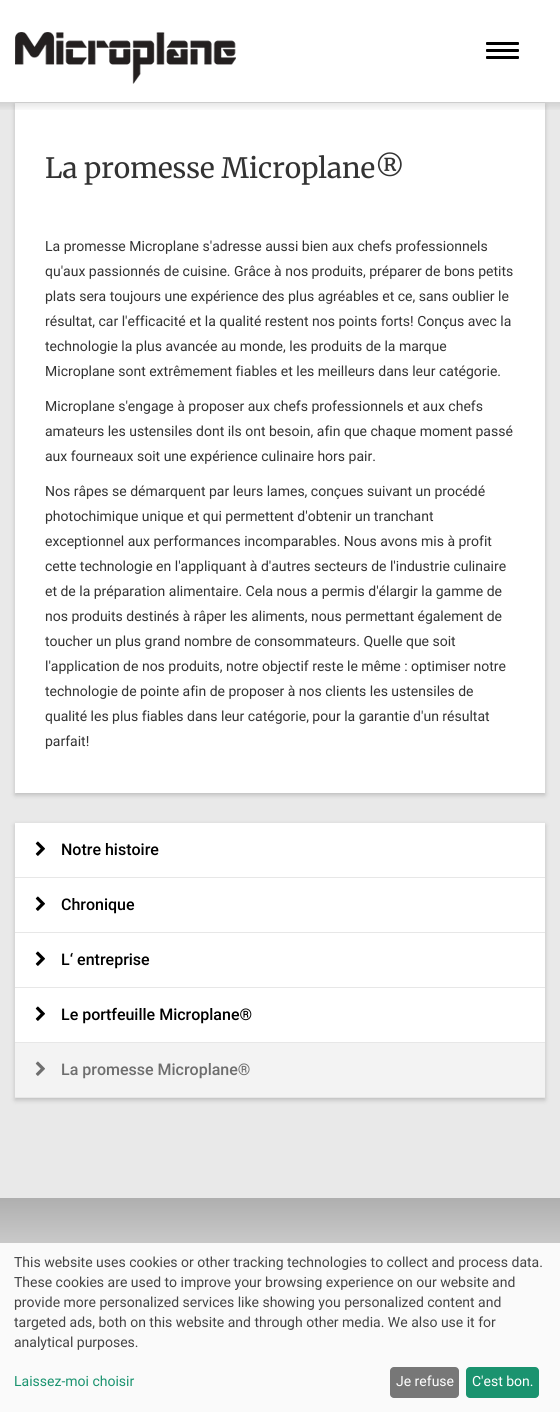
#include <cairo.h>
#include <math.h>
#include <stddef.h>


static void round_rect(cairo_t *cr, double x, double y, double w, double h, double r) {
    cairo_new_sub_path(cr);
    cairo_arc(cr, x + w - r, y + h - r, r, 0, M_PI / 2);
    cairo_arc(cr, x + r, y + h - r, r, M_PI / 2, M_PI);
    cairo_arc(cr, x + r, y + r, r, M_PI, 1.5 * M_PI);
    cairo_arc(cr, x + w - r, y + r, r, 1.5 * M_PI, 2 * M_PI);
    cairo_close_path(cr);
}

static void shadow(cairo_t *cr, double x, double y, double w, double h, double r, double blur, double alpha) {
    cairo_push_group_with_content(cr, CAIRO_CONTENT_ALPHA);
    cairo_set_operator(cr, CAIRO_OPERATOR_SOURCE);
    for (int i = 15; i >= -15 && fmin(w, h) + blur * i / 3 > 0; i -= 2) {
        double e = blur * i / 6;
        cairo_set_source_rgba(cr, 0, 0, 0, alpha * erfc((i - 1) / 8.5) / 2);
        round_rect(cr, x - e, y - e, w + 2 * e, h + 2 * e, fmax(0, fmin(r + e + blur * .6, fmin(w, h) / 2 + e)));
        cairo_fill(cr);
    }
    cairo_pattern_t *soft = cairo_pop_group(cr);
    cairo_mask(cr, soft);
    cairo_pattern_destroy(soft);
}

static void picture(cairo_t *cr, const char *path, double x, double y, double w, double h) {
    cairo_surface_t *image = cairo_image_surface_create_from_png(path);
    cairo_save(cr);
    cairo_set_source_surface(cr, image, x, y);
    cairo_rectangle(cr, x, y, w, h);
    cairo_fill(cr);
    cairo_restore(cr);
    cairo_surface_destroy(image);
}

int main(void) {
    cairo_surface_t *surface = cairo_image_surface_create(CAIRO_FORMAT_RGB24, 560, 1412);
    cairo_t *cr = cairo_create(surface);
    cairo_font_options_t *options = cairo_font_options_create();
    cairo_font_options_set_hint_metrics(options, CAIRO_HINT_METRICS_OFF);
    cairo_font_options_set_hint_style(options, CAIRO_HINT_STYLE_NONE);
    cairo_set_font_options(cr, options);
    cairo_set_miter_limit(cr, 4);
    cairo_pattern_t *gradient;
    cairo_set_source_rgb(cr, 0.914, 0.914, 0.914);
    cairo_paint(cr);
    cairo_set_source_rgb(cr, 0, 0, 0);
    shadow(cr, 15, 105, 530, 690, 0, 2.5, 0.2);
    cairo_set_source_rgb(cr, 1, 1, 1);
    cairo_rectangle(cr, 0, 0, 560, 102);
    cairo_fill(cr);
    picture(cr, "img1.png", 15, 32, 221, 52);
    cairo_set_source_rgb(cr, 0, 0, 0);
    round_rect(cr, 486, 42, 33, 3, 1);
    cairo_fill(cr);
    round_rect(cr, 486, 49, 33, 3, 1);
    cairo_fill(cr);
    round_rect(cr, 486, 56, 33, 3, 1);
    cairo_fill(cr);
    cairo_set_source_rgb(cr, 1, 1, 1);
    cairo_rectangle(cr, 15, 103, 530, 690);
    cairo_fill(cr);
    gradient = cairo_pattern_create_linear(280, 102, 280, 112);
    cairo_pattern_add_color_stop_rgba(gradient, 0, 0, 0, 0, 0.1);
    cairo_pattern_add_color_stop_rgba(gradient, 1, 0, 0, 0, 0);
    cairo_set_source(cr, gradient);
    cairo_pattern_destroy(gradient);
    cairo_rectangle(cr, 0, 102, 560, 8);
    cairo_fill(cr);
    cairo_select_font_face(cr, "Merriweather Light", CAIRO_FONT_SLANT_NORMAL, CAIRO_FONT_WEIGHT_NORMAL);
    cairo_set_font_size(cr, 28);
    cairo_set_source_rgb(cr, 0.2, 0.2, 0.2);
    cairo_move_to(cr, 45, 178);
    cairo_show_text(cr, "La promesse Microplane®");
    cairo_select_font_face(cr, "Roboto", CAIRO_FONT_SLANT_NORMAL, CAIRO_FONT_WEIGHT_NORMAL);
    cairo_set_font_size(cr, 14);
    cairo_move_to(cr, 45, 251);
    cairo_show_text(cr, "La promesse Microplane s'adresse aussi bien aux chefs professionnels");
    cairo_move_to(cr, 45, 276);
    cairo_show_text(cr, "qu'aux passionnés de cuisine. Grâce à nos produits, préparer de bons petits");
    cairo_move_to(cr, 45, 301);
    cairo_show_text(cr, "plats sera toujours une expérience des plus agréables et ce, sans oublier le");
    cairo_move_to(cr, 45, 326);
    cairo_show_text(cr, "résultat, car l'efficacité et la qualité restent nos points forts! Conçus avec la");
    cairo_move_to(cr, 45, 351);
    cairo_show_text(cr, "technologie la plus avancée au monde, les produits de la marque");
    cairo_move_to(cr, 45, 376);
    cairo_show_text(cr, "Microplane sont extrêmement fiables et les meilleurs dans leur catégorie.");
    cairo_move_to(cr, 45, 411);
    cairo_show_text(cr, "Microplane s'engage à proposer aux chefs professionnels et aux chefs");
    cairo_move_to(cr, 45, 436);
    cairo_show_text(cr, "amateurs les ustensiles dont ils ont besoin, afin que chaque moment passé");
    cairo_move_to(cr, 45, 461);
    cairo_show_text(cr, "aux fourneaux soit une expérience culinaire hors pair.");
    cairo_move_to(cr, 45, 496);
    cairo_show_text(cr, "Nos râpes se démarquent par leurs lames, conçues suivant un procédé");
    cairo_move_to(cr, 45, 521);
    cairo_show_text(cr, "photochimique unique et qui permettent d'obtenir un tranchant");
    cairo_move_to(cr, 45, 546);
    cairo_show_text(cr, "exceptionnel aux performances incomparables. Nous avons mis à profit");
    cairo_move_to(cr, 45, 571);
    cairo_show_text(cr, "cette technologie en l'appliquant à d'autres secteurs de l'industrie culinaire");
    cairo_move_to(cr, 45, 596);
    cairo_show_text(cr, "et de la préparation alimentaire. Cela nous a permis d'élargir la gamme de");
    cairo_move_to(cr, 45, 621);
    cairo_show_text(cr, "nos produits destinés à râper les aliments, nous permettant également de");
    cairo_move_to(cr, 45, 646);
    cairo_show_text(cr, "toucher un plus grand nombre de consommateurs. Quelle que soit");
    cairo_move_to(cr, 45, 671);
    cairo_show_text(cr, "l'application de nos produits, notre objectif reste le même : optimiser notre");
    cairo_move_to(cr, 45, 696);
    cairo_show_text(cr, "technologie de pointe afin de proposer à nos clients les ustensiles de");
    cairo_move_to(cr, 45, 721);
    cairo_show_text(cr, "qualité les plus fiables dans leur catégorie, pour la garantie d'un résultat");
    cairo_move_to(cr, 45, 746);
    cairo_show_text(cr, "parfait!");
    cairo_set_source_rgb(cr, 0, 0, 0);
    shadow(cr, 15, 825, 530, 275, 0, 2.5, 0.2);
    cairo_set_source_rgb(cr, 1, 1, 1);
    cairo_rectangle(cr, 15, 823, 530, 219);
    cairo_fill(cr);
    cairo_set_source_rgb(cr, 0.906, 0.906, 0.906);
    cairo_rectangle(cr, 15, 877, 530, 1);
    cairo_fill(cr);
    picture(cr, "img2.png", 35, 841, 10, 15);
    cairo_select_font_face(cr, "Roboto Medium", CAIRO_FONT_SLANT_NORMAL, CAIRO_FONT_WEIGHT_NORMAL);
    cairo_set_font_size(cr, 16);
    cairo_set_source_rgb(cr, 0, 0, 0);
    cairo_move_to(cr, 61, 855);
    cairo_show_text(cr, "Notre histoire");
    cairo_set_source_rgb(cr, 0.906, 0.906, 0.906);
    cairo_rectangle(cr, 15, 932, 530, 1);
    cairo_fill(cr);
    picture(cr, "img2.png", 35, 896, 10, 15);
    cairo_set_source_rgb(cr, 0, 0, 0);
    cairo_move_to(cr, 61, 910);
    cairo_show_text(cr, "Chronique");
    cairo_set_source_rgb(cr, 0.906, 0.906, 0.906);
    cairo_rectangle(cr, 15, 987, 530, 1);
    cairo_fill(cr);
    picture(cr, "img2.png", 35, 951, 10, 15);
    cairo_set_source_rgb(cr, 0, 0, 0);
    cairo_move_to(cr, 61, 965);
    cairo_show_text(cr, "L‘ entreprise");
    cairo_set_source_rgb(cr, 0.906, 0.906, 0.906);
    cairo_rectangle(cr, 15, 1042, 530, 1);
    cairo_fill(cr);
    picture(cr, "img2.png", 35, 1006, 10, 15);
    cairo_set_source_rgb(cr, 0, 0, 0);
    cairo_move_to(cr, 61, 1020);
    cairo_show_text(cr, "Le portfeuille Microplane®");
    cairo_set_source_rgb(cr, 0.906, 0.906, 0.906);
    cairo_rectangle(cr, 15, 1097, 530, 1);
    cairo_fill(cr);
    cairo_set_source_rgb(cr, 0.953, 0.953, 0.953);
    cairo_rectangle(cr, 15, 1043, 530, 54);
    cairo_fill(cr);
    picture(cr, "img3.png", 35, 1061, 10, 15);
    cairo_set_source_rgb(cr, 0.431, 0.431, 0.431);
    cairo_move_to(cr, 61, 1075);
    cairo_show_text(cr, "La promesse Microplane®");
    gradient = cairo_pattern_create_linear(280, 1198, 280, 1298);
    cairo_pattern_add_color_stop_rgba(gradient, 0, 0.686, 0.686, 0.686, 1);
    cairo_pattern_add_color_stop_rgba(gradient, 1, 0.914, 0.914, 0.914, 1);
    cairo_set_source(cr, gradient);
    cairo_pattern_destroy(gradient);
    cairo_rectangle(cr, 0, 1198, 560, 45);
    cairo_fill(cr);
    cairo_set_source_rgb(cr, 0.98, 0.98, 0.98);
    cairo_rectangle(cr, 0, 1243, 560, 169);
    cairo_fill(cr);
    cairo_select_font_face(cr, "Roboto", CAIRO_FONT_SLANT_NORMAL, CAIRO_FONT_WEIGHT_NORMAL);
    cairo_set_font_size(cr, 14);
    cairo_set_source_rgb(cr, 0.267, 0.267, 0.267);
    cairo_move_to(cr, 14, 1267);
    cairo_show_text(cr, "This website uses cookies or other tracking technologies to collect and process data.");
    cairo_move_to(cr, 14, 1287);
    cairo_show_text(cr, "These cookies are used to improve your browsing experience on our website and");
    cairo_move_to(cr, 14, 1307);
    cairo_show_text(cr, "provide more personalized services like showing you personalized content and");
    cairo_move_to(cr, 14, 1327);
    cairo_show_text(cr, "targeted ads, both on this website and through other media. We also use it for");
    cairo_move_to(cr, 14, 1347);
    cairo_show_text(cr, "analytical purposes.");
    cairo_set_source_rgb(cr, 0.102, 0.576, 0.435);
    cairo_move_to(cr, 14, 1386);
    cairo_show_text(cr, "Laissez-moi choisir");
    cairo_set_source_rgb(cr, 0.467, 0.467, 0.467);
    round_rect(cr, 390, 1367, 69, 31, 4);
    cairo_fill(cr);
    cairo_set_source_rgb(cr, 1, 1, 1);
    cairo_move_to(cr, 396, 1386);
    cairo_show_text(cr, "Je refuse");
    cairo_set_source_rgb(cr, 0.102, 0.576, 0.435);
    round_rect(cr, 466, 1367, 73, 31, 4);
    cairo_fill(cr);
    cairo_set_source_rgb(cr, 1, 1, 1);
    cairo_move_to(cr, 472, 1386);
    cairo_show_text(cr, "C'est bon.");
    cairo_surface_write_to_png(surface, "page.png");
    cairo_font_options_destroy(options);
    cairo_destroy(cr);
    cairo_surface_destroy(surface);
    return 0;
}
